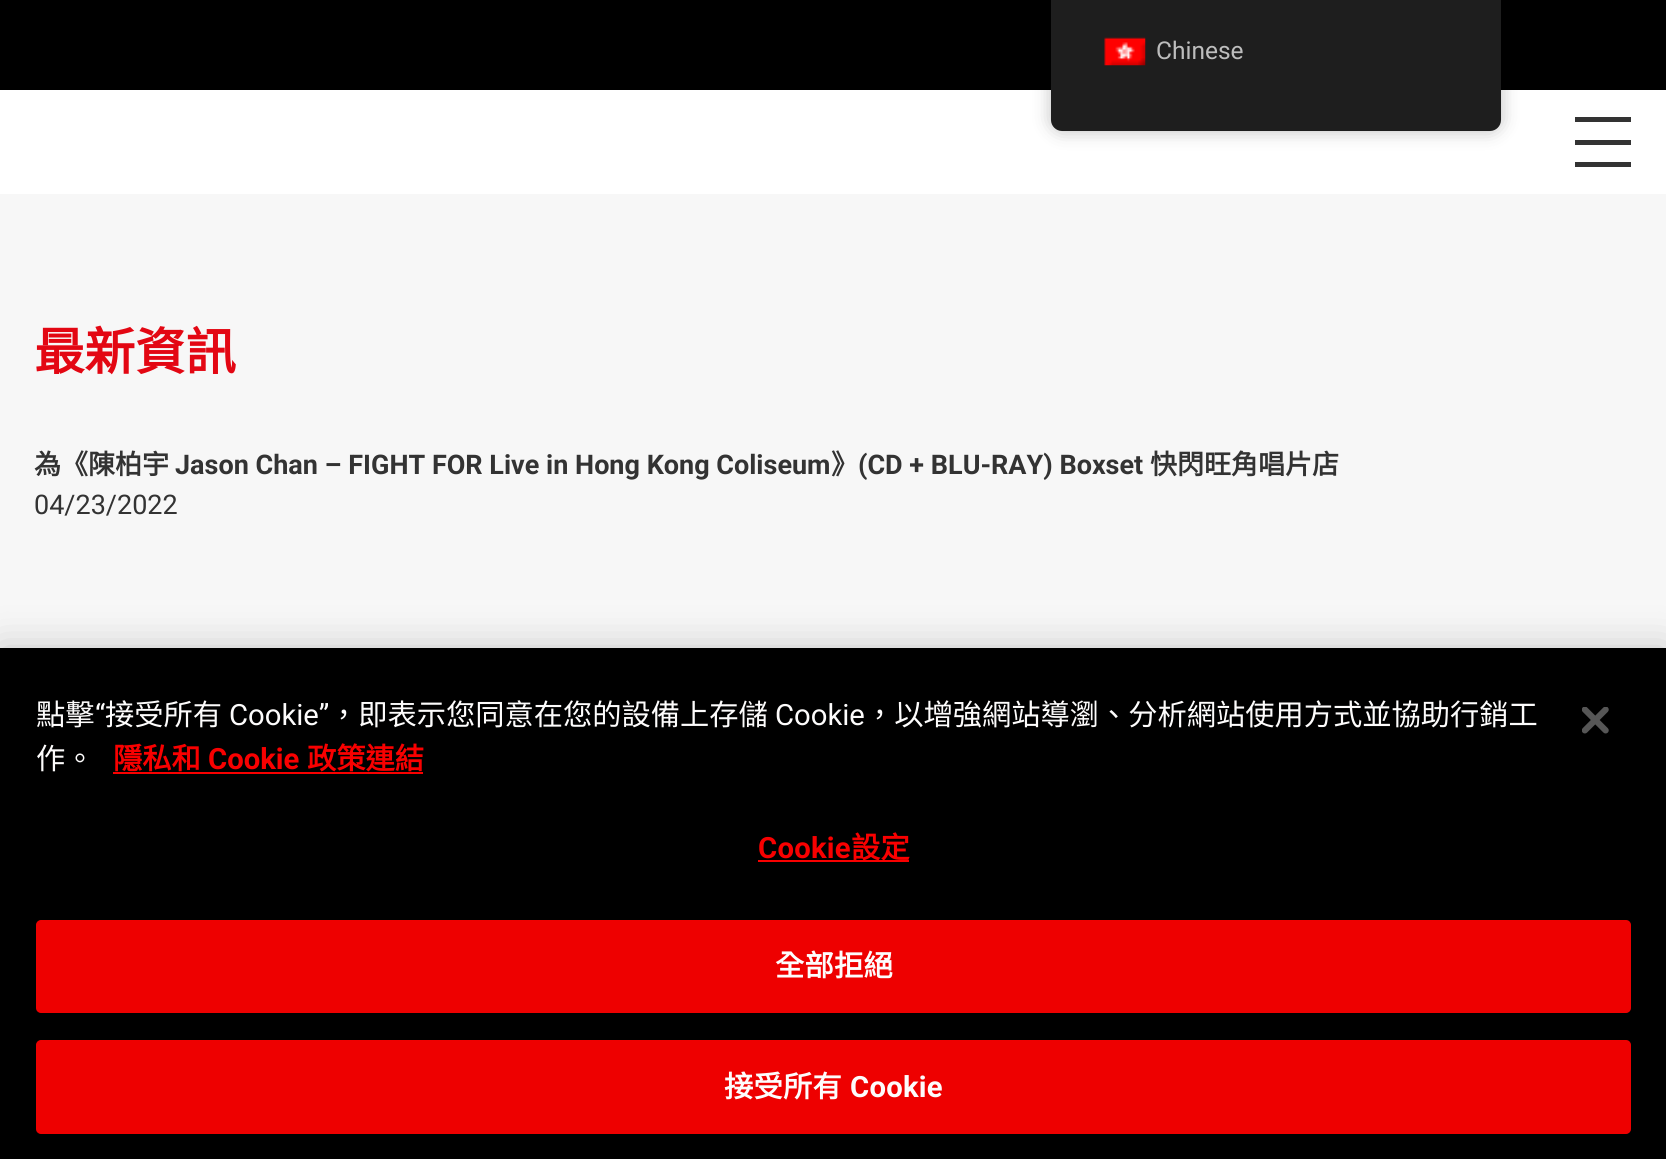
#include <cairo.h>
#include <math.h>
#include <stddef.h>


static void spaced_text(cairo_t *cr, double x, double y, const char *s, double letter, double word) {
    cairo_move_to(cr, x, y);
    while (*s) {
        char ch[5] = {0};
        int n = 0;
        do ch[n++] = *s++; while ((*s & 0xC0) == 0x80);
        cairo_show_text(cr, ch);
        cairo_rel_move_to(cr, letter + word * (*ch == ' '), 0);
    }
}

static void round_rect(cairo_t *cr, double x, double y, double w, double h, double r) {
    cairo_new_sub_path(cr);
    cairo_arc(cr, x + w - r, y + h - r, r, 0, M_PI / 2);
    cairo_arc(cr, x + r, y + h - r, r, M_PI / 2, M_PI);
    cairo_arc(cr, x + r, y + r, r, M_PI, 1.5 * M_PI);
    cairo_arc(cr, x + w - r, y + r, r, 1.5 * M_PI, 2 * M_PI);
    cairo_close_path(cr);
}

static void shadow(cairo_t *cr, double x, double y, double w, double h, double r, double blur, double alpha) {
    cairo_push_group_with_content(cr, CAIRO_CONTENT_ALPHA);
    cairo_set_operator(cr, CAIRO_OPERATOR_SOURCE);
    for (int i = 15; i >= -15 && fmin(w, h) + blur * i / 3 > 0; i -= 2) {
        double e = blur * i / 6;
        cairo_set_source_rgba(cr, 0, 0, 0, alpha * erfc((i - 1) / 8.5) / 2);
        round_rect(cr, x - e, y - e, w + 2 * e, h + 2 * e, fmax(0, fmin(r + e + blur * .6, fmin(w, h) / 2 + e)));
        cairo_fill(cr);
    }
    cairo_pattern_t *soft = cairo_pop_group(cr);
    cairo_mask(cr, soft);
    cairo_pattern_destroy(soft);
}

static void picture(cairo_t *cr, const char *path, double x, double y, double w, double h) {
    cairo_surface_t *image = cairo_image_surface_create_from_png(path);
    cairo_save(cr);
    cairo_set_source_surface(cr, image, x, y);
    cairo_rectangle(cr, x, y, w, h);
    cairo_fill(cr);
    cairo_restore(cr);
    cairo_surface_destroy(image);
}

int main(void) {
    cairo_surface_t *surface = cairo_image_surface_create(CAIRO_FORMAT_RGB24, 1666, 1159);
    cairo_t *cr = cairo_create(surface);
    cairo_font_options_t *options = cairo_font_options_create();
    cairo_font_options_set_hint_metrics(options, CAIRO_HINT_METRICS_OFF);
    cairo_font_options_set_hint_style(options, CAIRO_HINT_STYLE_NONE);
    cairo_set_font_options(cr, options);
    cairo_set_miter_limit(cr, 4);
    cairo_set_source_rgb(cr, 0.965, 0.965, 0.965);
    cairo_paint(cr);
    cairo_set_source_rgb(cr, 0, 0, 0);
    cairo_rectangle(cr, 0, 0, 1666, 90);
    cairo_fill(cr);
    cairo_set_source_rgb(cr, 1, 1, 1);
    cairo_rectangle(cr, 0, 90, 1666, 104);
    cairo_fill(cr);
    cairo_set_source_rgb(cr, 0, 0, 0);
    shadow(cr, 1051, 0, 450, 131, 11, 9, 0.25);
    cairo_set_source_rgb(cr, 0.118, 0.118, 0.118);
    cairo_new_path(cr);
    cairo_move_to(cr, 1051, 0);
    cairo_line_to(cr, 1501, 0);
    cairo_line_to(cr, 1501, 120);
    cairo_curve_to(cr, 1501, 126, 1496, 131, 1490, 131);
    cairo_line_to(cr, 1062, 131);
    cairo_curve_to(cr, 1056, 131, 1051, 126, 1051, 120);
    cairo_close_path(cr);
    cairo_fill(cr);
    picture(cr, "img1.png", 1104, 37, 42, 29);
    cairo_select_font_face(cr, "Roboto", CAIRO_FONT_SLANT_NORMAL, CAIRO_FONT_WEIGHT_NORMAL);
    cairo_set_font_size(cr, 24.5);
    cairo_set_source_rgb(cr, 0.741, 0.741, 0.741);
    cairo_move_to(cr, 1156, 59);
    cairo_show_text(cr, "Chinese");
    cairo_set_source_rgb(cr, 0.2, 0.2, 0.2);
    cairo_rectangle(cr, 1575, 162, 56, 5);
    cairo_fill(cr);
    cairo_rectangle(cr, 1575, 117, 56, 5);
    cairo_fill(cr);
    cairo_rectangle(cr, 1575, 140, 56, 5);
    cairo_fill(cr);
    cairo_select_font_face(cr, "Noto Sans CJK HK", CAIRO_FONT_SLANT_NORMAL, CAIRO_FONT_WEIGHT_BOLD);
    cairo_set_font_size(cr, 50.5);
    cairo_set_source_rgb(cr, 0.89, 0.031, 0.075);
    cairo_move_to(cr, 34, 370);
    cairo_show_text(cr, "最新資訊");
    cairo_set_font_size(cr, 27);
    cairo_set_source_rgb(cr, 0.2, 0.2, 0.2);
    cairo_move_to(cr, 34, 474);
    cairo_show_text(cr, "為《陳柏宇");
    cairo_select_font_face(cr, "Roboto", CAIRO_FONT_SLANT_NORMAL, CAIRO_FONT_WEIGHT_BOLD);
    cairo_move_to(cr, 175, 474);
    cairo_show_text(cr, "Jason Chan – FIGHT FOR Live in Hong Kong Coliseum");
    cairo_select_font_face(cr, "Noto Sans CJK HK", CAIRO_FONT_SLANT_NORMAL, CAIRO_FONT_WEIGHT_BOLD);
    cairo_move_to(cr, 831, 474);
    cairo_show_text(cr, "》");
    cairo_select_font_face(cr, "Roboto", CAIRO_FONT_SLANT_NORMAL, CAIRO_FONT_WEIGHT_BOLD);
    cairo_move_to(cr, 858, 474);
    cairo_show_text(cr, "(CD + BLU-RAY) Boxset");
    cairo_select_font_face(cr, "Noto Sans CJK HK", CAIRO_FONT_SLANT_NORMAL, CAIRO_FONT_WEIGHT_BOLD);
    cairo_move_to(cr, 1150, 474);
    cairo_show_text(cr, "快閃旺角唱片店");
    cairo_select_font_face(cr, "Roboto", CAIRO_FONT_SLANT_NORMAL, CAIRO_FONT_WEIGHT_NORMAL);
    cairo_move_to(cr, 34, 514);
    cairo_show_text(cr, "04/23/2022");
    cairo_set_source_rgb(cr, 0, 0, 0);
    shadow(cr, 0, 648, 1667, 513, 0, 20, 0.2);
    cairo_set_source_rgb(cr, 0, 0, 0);
    cairo_rectangle(cr, 0, 648, 1666, 511);
    cairo_fill(cr);
    cairo_select_font_face(cr, "Noto Sans CJK HK", CAIRO_FONT_SLANT_NORMAL, CAIRO_FONT_WEIGHT_NORMAL);
    cairo_set_font_size(cr, 29.25);
    cairo_set_source_rgb(cr, 0.992, 0.988, 0.988);
    cairo_move_to(cr, 36, 725);
    cairo_show_text(cr, "點擊");
    cairo_select_font_face(cr, "Roboto", CAIRO_FONT_SLANT_NORMAL, CAIRO_FONT_WEIGHT_NORMAL);
    cairo_move_to(cr, 95, 725);
    cairo_show_text(cr, "“");
    cairo_select_font_face(cr, "Noto Sans CJK HK", CAIRO_FONT_SLANT_NORMAL, CAIRO_FONT_WEIGHT_NORMAL);
    cairo_move_to(cr, 105, 725);
    cairo_show_text(cr, "接受所有");
    cairo_select_font_face(cr, "Roboto", CAIRO_FONT_SLANT_NORMAL, CAIRO_FONT_WEIGHT_NORMAL);
    cairo_move_to(cr, 229, 725);
    cairo_show_text(cr, "Cookie”");
    cairo_select_font_face(cr, "Noto Sans CJK HK", CAIRO_FONT_SLANT_NORMAL, CAIRO_FONT_WEIGHT_NORMAL);
    cairo_move_to(cr, 329, 725);
    cairo_show_text(cr, "，即表示您同意在您的設備上存儲");
    cairo_select_font_face(cr, "Roboto", CAIRO_FONT_SLANT_NORMAL, CAIRO_FONT_WEIGHT_NORMAL);
    cairo_move_to(cr, 775, 725);
    cairo_show_text(cr, "Cookie");
    cairo_select_font_face(cr, "Noto Sans CJK HK", CAIRO_FONT_SLANT_NORMAL, CAIRO_FONT_WEIGHT_NORMAL);
    cairo_move_to(cr, 865, 725);
    cairo_show_text(cr, "，以增強網站導瀏、分析網站使用方式並協助行銷工");
    cairo_move_to(cr, 36, 769);
    cairo_show_text(cr, "作。");
    cairo_select_font_face(cr, "Noto Sans CJK HK", CAIRO_FONT_SLANT_NORMAL, CAIRO_FONT_WEIGHT_BOLD);
    cairo_set_source_rgb(cr, 0.976, 0, 0);
    cairo_move_to(cr, 113, 769);
    cairo_show_text(cr, "隱私和");
    cairo_select_font_face(cr, "Roboto", CAIRO_FONT_SLANT_NORMAL, CAIRO_FONT_WEIGHT_BOLD);
    cairo_move_to(cr, 208, 769);
    cairo_show_text(cr, "Cookie");
    cairo_rectangle(cr, 113, 772, 310, 2);
    cairo_fill(cr);
    cairo_select_font_face(cr, "Noto Sans CJK HK", CAIRO_FONT_SLANT_NORMAL, CAIRO_FONT_WEIGHT_BOLD);
    cairo_move_to(cr, 307, 769);
    cairo_show_text(cr, "政策連結");
    cairo_select_font_face(cr, "Roboto", CAIRO_FONT_SLANT_NORMAL, CAIRO_FONT_WEIGHT_BOLD);
    spaced_text(cr, 758, 858, "Cookie", 0.25, 0);
    cairo_rectangle(cr, 758, 860, 151, 2);
    cairo_fill(cr);
    cairo_select_font_face(cr, "Noto Sans CJK HK", CAIRO_FONT_SLANT_NORMAL, CAIRO_FONT_WEIGHT_BOLD);
    spaced_text(cr, 851, 858, "設定", 0.25, 0);
    cairo_set_source_rgb(cr, 0.933, 0, 0);
    round_rect(cr, 37, 921, 1593, 91, 4);
    cairo_fill_preserve(cr);
    cairo_stroke(cr);
    cairo_set_source_rgb(cr, 0.992, 0.988, 0.988);
    spaced_text(cr, 775, 976, "全部拒絕", 0.25, 0);
    cairo_set_source_rgb(cr, 0.933, 0, 0);
    round_rect(cr, 37, 1041, 1593, 92, 4);
    cairo_fill_preserve(cr);
    cairo_stroke(cr);
    cairo_set_source_rgb(cr, 0.992, 0.988, 0.988);
    spaced_text(cr, 724, 1097, "接受所有", 0.25, 0);
    cairo_select_font_face(cr, "Roboto", CAIRO_FONT_SLANT_NORMAL, CAIRO_FONT_WEIGHT_BOLD);
    spaced_text(cr, 850, 1097, "Cookie", 0.25, 0);
    picture(cr, "img2.png", 1582, 707, 27, 27);
    cairo_surface_write_to_png(surface, "page.png");
    cairo_font_options_destroy(options);
    cairo_destroy(cr);
    cairo_surface_destroy(surface);
    return 0;
}
